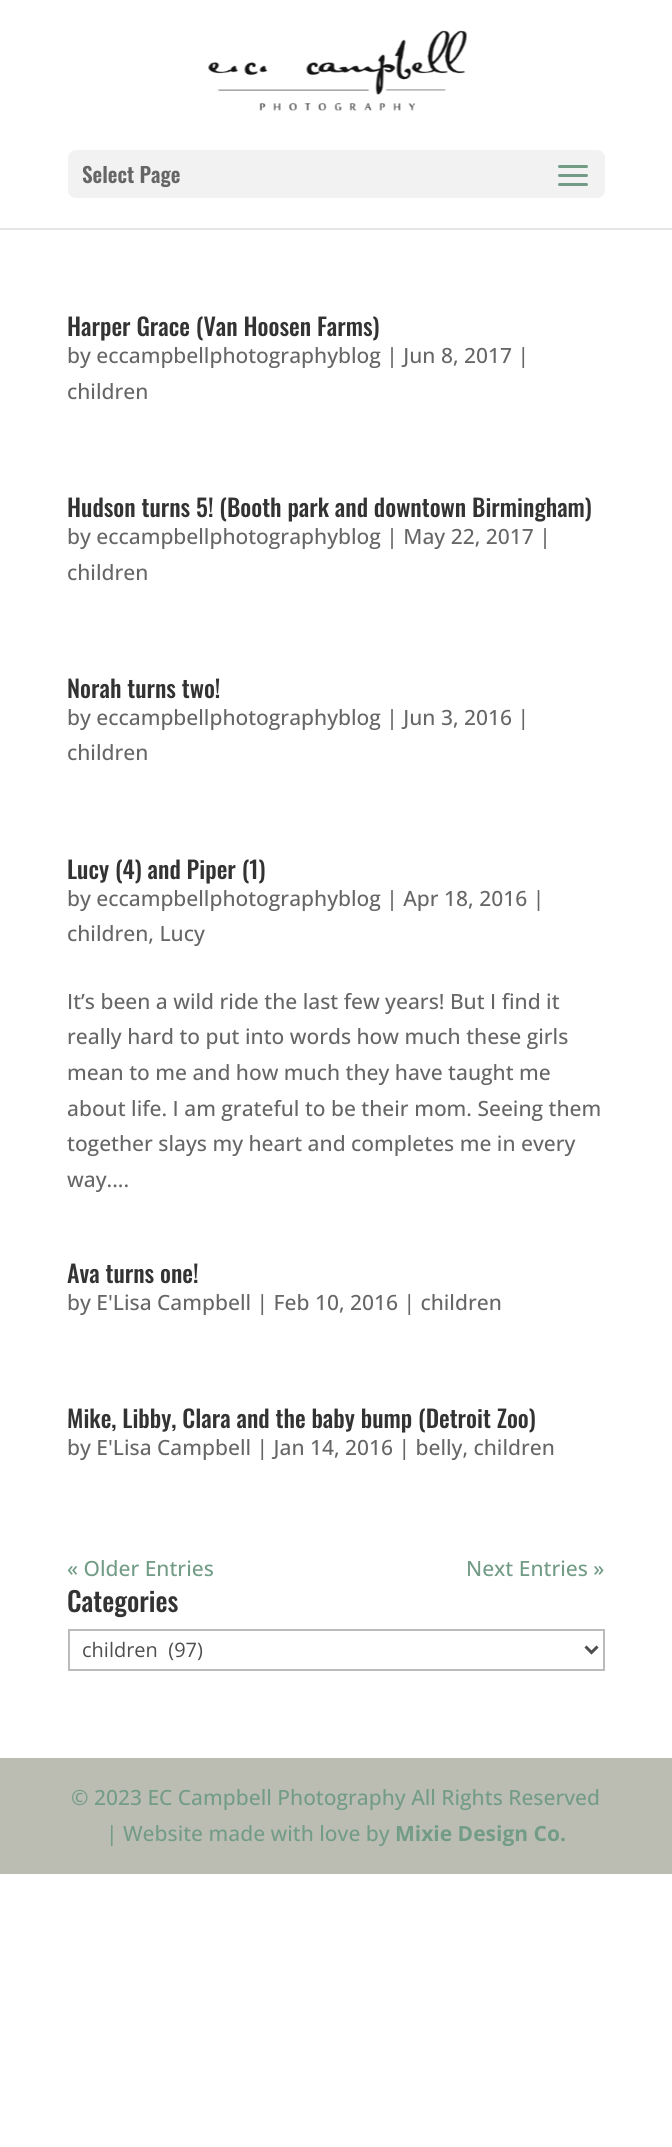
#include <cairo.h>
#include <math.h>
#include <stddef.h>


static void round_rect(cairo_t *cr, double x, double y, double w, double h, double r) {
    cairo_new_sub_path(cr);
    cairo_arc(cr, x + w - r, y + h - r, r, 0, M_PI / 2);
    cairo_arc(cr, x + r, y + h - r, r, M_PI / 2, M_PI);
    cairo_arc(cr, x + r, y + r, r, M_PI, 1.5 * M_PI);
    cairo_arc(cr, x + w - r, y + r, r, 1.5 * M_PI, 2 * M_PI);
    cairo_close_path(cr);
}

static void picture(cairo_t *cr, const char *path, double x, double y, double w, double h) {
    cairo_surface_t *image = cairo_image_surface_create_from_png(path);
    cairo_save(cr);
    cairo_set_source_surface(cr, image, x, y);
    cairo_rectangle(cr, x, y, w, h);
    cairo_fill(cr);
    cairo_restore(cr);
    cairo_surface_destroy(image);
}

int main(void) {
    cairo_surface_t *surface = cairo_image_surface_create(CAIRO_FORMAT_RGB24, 672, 2147);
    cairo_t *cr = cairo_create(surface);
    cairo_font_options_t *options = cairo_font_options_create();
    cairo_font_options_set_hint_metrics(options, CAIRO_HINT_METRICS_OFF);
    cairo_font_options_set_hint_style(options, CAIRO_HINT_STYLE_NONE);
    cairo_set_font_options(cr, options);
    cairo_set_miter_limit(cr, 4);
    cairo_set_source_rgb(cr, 1, 1, 1);
    cairo_paint(cr);
    cairo_set_source_rgb(cr, 0.902, 0.902, 0.902);
    cairo_rectangle(cr, 0, 228, 672, 2);
    cairo_fill(cr);
    picture(cr, "img1.png", 208, 30, 259, 81);
    cairo_set_source_rgb(cr, 0.949, 0.949, 0.949);
    round_rect(cr, 68, 150, 537, 48, 8);
    cairo_fill(cr);
    cairo_select_font_face(cr, "Oswald SemiBold", CAIRO_FONT_SLANT_NORMAL, CAIRO_FONT_WEIGHT_NORMAL);
    cairo_set_font_size(cr, 21);
    cairo_set_source_rgb(cr, 0.4, 0.4, 0.4);
    cairo_move_to(cr, 82, 183);
    cairo_show_text(cr, "Select Page");
    picture(cr, "img2.png", 558, 165, 30, 21);
    cairo_select_font_face(cr, "Oswald Medium", CAIRO_FONT_SLANT_NORMAL, CAIRO_FONT_WEIGHT_NORMAL);
    cairo_set_font_size(cr, 24);
    cairo_set_source_rgb(cr, 0.2, 0.2, 0.2);
    cairo_move_to(cr, 67, 336);
    cairo_show_text(cr, "Harper Grace (Van Hoosen Farms)");
    cairo_select_font_face(cr, "Open Sans Medium", CAIRO_FONT_SLANT_NORMAL, CAIRO_FONT_WEIGHT_NORMAL);
    cairo_set_font_size(cr, 21);
    cairo_set_source_rgb(cr, 0.4, 0.4, 0.4);
    cairo_move_to(cr, 67, 363);
    cairo_show_text(cr, "by eccampbellphotographyblog | Jun 8, 2017 |");
    cairo_move_to(cr, 67, 399);
    cairo_show_text(cr, "children");
    cairo_select_font_face(cr, "Oswald Medium", CAIRO_FONT_SLANT_NORMAL, CAIRO_FONT_WEIGHT_NORMAL);
    cairo_set_font_size(cr, 24);
    cairo_set_source_rgb(cr, 0.2, 0.2, 0.2);
    cairo_move_to(cr, 67, 517);
    cairo_show_text(cr, "Hudson turns 5! (Booth park and downtown Birmingham)");
    cairo_select_font_face(cr, "Open Sans Medium", CAIRO_FONT_SLANT_NORMAL, CAIRO_FONT_WEIGHT_NORMAL);
    cairo_set_font_size(cr, 21);
    cairo_set_source_rgb(cr, 0.4, 0.4, 0.4);
    cairo_move_to(cr, 67, 544);
    cairo_show_text(cr, "by eccampbellphotographyblog | May 22, 2017 |");
    cairo_move_to(cr, 67, 580);
    cairo_show_text(cr, "children");
    cairo_select_font_face(cr, "Oswald Medium", CAIRO_FONT_SLANT_NORMAL, CAIRO_FONT_WEIGHT_NORMAL);
    cairo_set_font_size(cr, 24);
    cairo_set_source_rgb(cr, 0.2, 0.2, 0.2);
    cairo_move_to(cr, 67, 698);
    cairo_show_text(cr, "Norah turns two!");
    cairo_select_font_face(cr, "Open Sans Medium", CAIRO_FONT_SLANT_NORMAL, CAIRO_FONT_WEIGHT_NORMAL);
    cairo_set_font_size(cr, 21);
    cairo_set_source_rgb(cr, 0.4, 0.4, 0.4);
    cairo_move_to(cr, 67, 725);
    cairo_show_text(cr, "by eccampbellphotographyblog | Jun 3, 2016 |");
    cairo_move_to(cr, 67, 760);
    cairo_show_text(cr, "children");
    cairo_select_font_face(cr, "Oswald Medium", CAIRO_FONT_SLANT_NORMAL, CAIRO_FONT_WEIGHT_NORMAL);
    cairo_set_font_size(cr, 24);
    cairo_set_source_rgb(cr, 0.2, 0.2, 0.2);
    cairo_move_to(cr, 67, 879);
    cairo_show_text(cr, "Lucy (4) and Piper (1)");
    cairo_select_font_face(cr, "Open Sans Medium", CAIRO_FONT_SLANT_NORMAL, CAIRO_FONT_WEIGHT_NORMAL);
    cairo_set_font_size(cr, 21);
    cairo_set_source_rgb(cr, 0.4, 0.4, 0.4);
    cairo_move_to(cr, 67, 906);
    cairo_show_text(cr, "by eccampbellphotographyblog | Apr 18, 2016 |");
    cairo_move_to(cr, 67, 941);
    cairo_show_text(cr, "children, Lucy");
    cairo_move_to(cr, 67, 1009);
    cairo_show_text(cr, "It’s been a wild ride the last few years! But I find it");
    cairo_move_to(cr, 67, 1044);
    cairo_show_text(cr, "really hard to put into words how much these girls");
    cairo_move_to(cr, 67, 1080);
    cairo_show_text(cr, "mean to me and how much they have taught me");
    cairo_move_to(cr, 67, 1116);
    cairo_show_text(cr, "about life. I am grateful to be their mom. Seeing them");
    cairo_move_to(cr, 67, 1151);
    cairo_show_text(cr, "together slays my heart and completes me in every");
    cairo_move_to(cr, 67, 1187);
    cairo_show_text(cr, "way....");
    cairo_select_font_face(cr, "Oswald Medium", CAIRO_FONT_SLANT_NORMAL, CAIRO_FONT_WEIGHT_NORMAL);
    cairo_set_font_size(cr, 24);
    cairo_set_source_rgb(cr, 0.2, 0.2, 0.2);
    cairo_move_to(cr, 67, 1283);
    cairo_show_text(cr, "Ava turns one!");
    cairo_select_font_face(cr, "Open Sans Medium", CAIRO_FONT_SLANT_NORMAL, CAIRO_FONT_WEIGHT_NORMAL);
    cairo_set_font_size(cr, 21);
    cairo_set_source_rgb(cr, 0.4, 0.4, 0.4);
    cairo_move_to(cr, 67, 1310);
    cairo_show_text(cr, "by E'Lisa Campbell | Feb 10, 2016 | children");
    cairo_select_font_face(cr, "Oswald Medium", CAIRO_FONT_SLANT_NORMAL, CAIRO_FONT_WEIGHT_NORMAL);
    cairo_set_font_size(cr, 24);
    cairo_set_source_rgb(cr, 0.2, 0.2, 0.2);
    cairo_move_to(cr, 67, 1428);
    cairo_show_text(cr, "Mike, Libby, Clara and the baby bump (Detroit Zoo)");
    cairo_select_font_face(cr, "Open Sans Medium", CAIRO_FONT_SLANT_NORMAL, CAIRO_FONT_WEIGHT_NORMAL);
    cairo_set_font_size(cr, 21);
    cairo_set_source_rgb(cr, 0.4, 0.4, 0.4);
    cairo_move_to(cr, 67, 1455);
    cairo_show_text(cr, "by E'Lisa Campbell | Jan 14, 2016 | belly, children");
    cairo_set_source_rgb(cr, 0.451, 0.612, 0.529);
    cairo_move_to(cr, 67, 1576);
    cairo_show_text(cr, "« Older Entries");
    cairo_move_to(cr, 466, 1576);
    cairo_show_text(cr, "Next Entries »");
    cairo_select_font_face(cr, "Oswald Medium", CAIRO_FONT_SLANT_NORMAL, CAIRO_FONT_WEIGHT_NORMAL);
    cairo_set_font_size(cr, 27);
    cairo_set_source_rgb(cr, 0.2, 0.2, 0.2);
    cairo_move_to(cr, 67, 1612);
    cairo_show_text(cr, "Categories");
    cairo_rectangle(cr, 69, 1630, 535, 40);
    cairo_set_source_rgb(cr, 0.733, 0.733, 0.733);
    cairo_stroke(cr);
    cairo_new_path(cr);
    cairo_move_to(cr, 585.5, 1646.5);
    cairo_line_to(cr, 591.5, 1652.5);
    cairo_line_to(cr, 597.5, 1646.5);
    cairo_set_source_rgb(cr, 0.306, 0.306, 0.306);
    cairo_set_line_width(cr, 3);
    cairo_stroke(cr);
    cairo_select_font_face(cr, "Open Sans", CAIRO_FONT_SLANT_NORMAL, CAIRO_FONT_WEIGHT_NORMAL);
    cairo_set_font_size(cr, 20);
    cairo_move_to(cr, 82, 1657);
    cairo_show_text(cr, "children  (97)");
    cairo_set_source_rgb(cr, 0.733, 0.741, 0.702);
    cairo_rectangle(cr, 0, 1758, 672, 116);
    cairo_fill(cr);
    cairo_select_font_face(cr, "Open Sans Medium", CAIRO_FONT_SLANT_NORMAL, CAIRO_FONT_WEIGHT_NORMAL);
    cairo_set_font_size(cr, 21);
    cairo_set_source_rgb(cr, 0.451, 0.612, 0.529);
    cairo_move_to(cr, 71, 1805);
    cairo_show_text(cr, "© 2023 EC Campbell Photography All Rights Reserved");
    cairo_move_to(cr, 106, 1841);
    cairo_show_text(cr, "| Website made with love by");
    cairo_select_font_face(cr, "Open Sans", CAIRO_FONT_SLANT_NORMAL, CAIRO_FONT_WEIGHT_BOLD);
    cairo_move_to(cr, 395, 1841);
    cairo_show_text(cr, "Mixie Design Co.");
    cairo_surface_write_to_png(surface, "page.png");
    cairo_font_options_destroy(options);
    cairo_destroy(cr);
    cairo_surface_destroy(surface);
    return 0;
}
